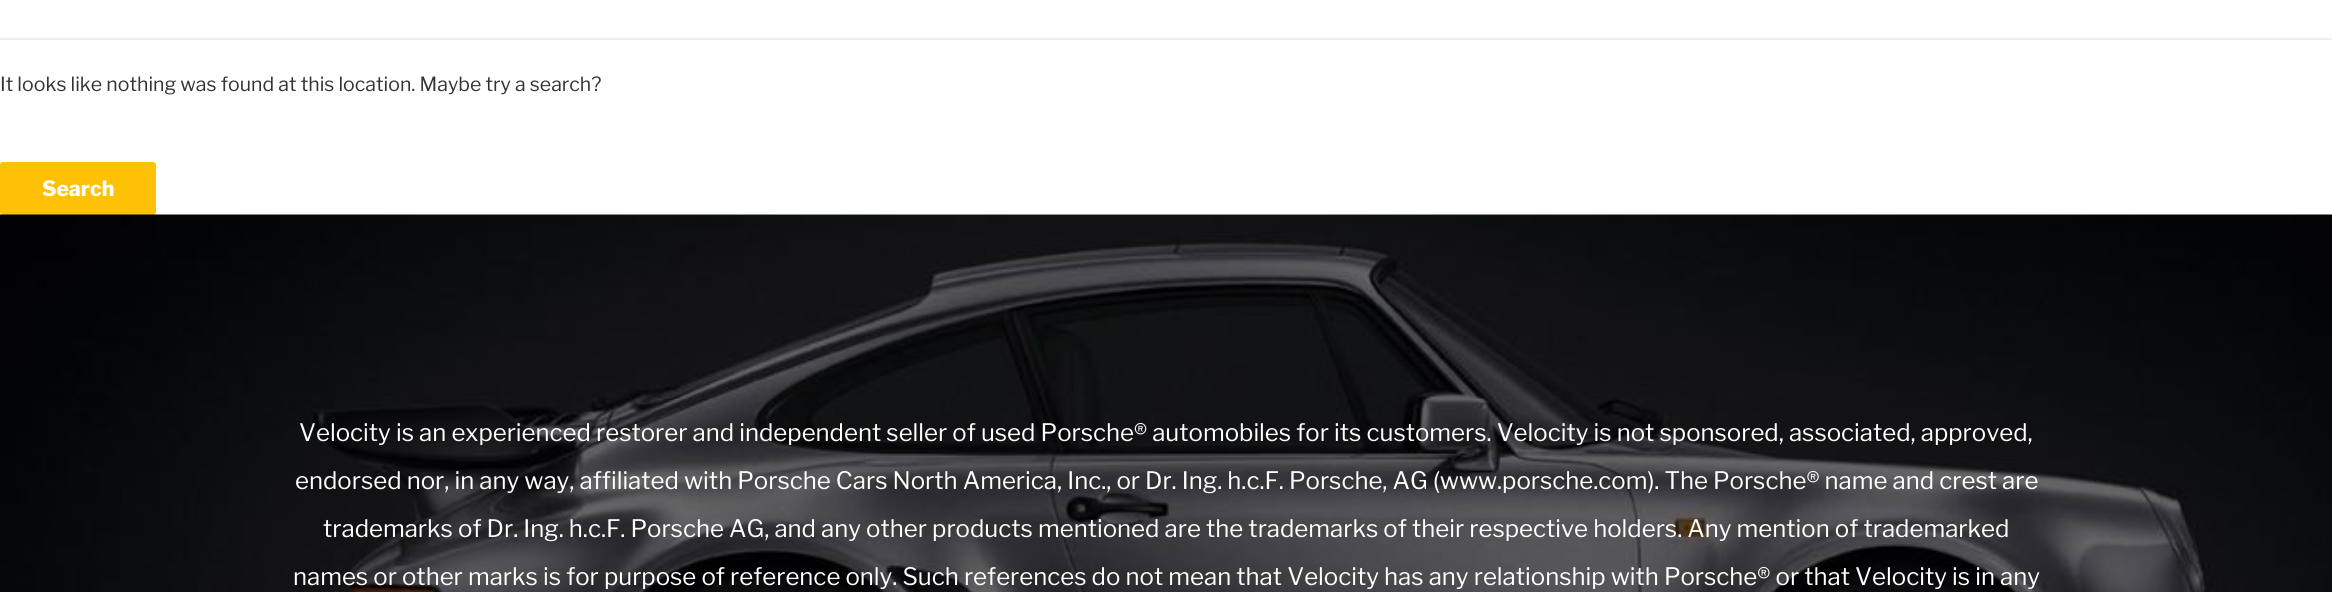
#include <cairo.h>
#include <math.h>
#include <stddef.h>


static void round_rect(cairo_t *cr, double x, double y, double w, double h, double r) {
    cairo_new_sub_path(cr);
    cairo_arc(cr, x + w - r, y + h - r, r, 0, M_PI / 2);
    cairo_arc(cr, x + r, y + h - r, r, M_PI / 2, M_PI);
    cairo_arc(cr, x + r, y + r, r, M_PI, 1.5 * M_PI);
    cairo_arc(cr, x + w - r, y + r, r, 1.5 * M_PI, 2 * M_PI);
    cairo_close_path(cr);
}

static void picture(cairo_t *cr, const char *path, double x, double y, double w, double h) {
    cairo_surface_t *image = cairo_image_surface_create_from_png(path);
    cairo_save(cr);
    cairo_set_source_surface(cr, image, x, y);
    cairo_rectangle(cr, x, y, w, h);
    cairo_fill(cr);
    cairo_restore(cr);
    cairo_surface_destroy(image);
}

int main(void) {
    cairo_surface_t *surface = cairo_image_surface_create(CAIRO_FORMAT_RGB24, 2332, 592);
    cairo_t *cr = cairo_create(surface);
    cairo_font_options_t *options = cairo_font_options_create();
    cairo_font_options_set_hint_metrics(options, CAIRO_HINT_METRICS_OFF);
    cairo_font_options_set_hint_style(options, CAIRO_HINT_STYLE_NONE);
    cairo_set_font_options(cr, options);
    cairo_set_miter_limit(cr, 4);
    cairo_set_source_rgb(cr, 1, 1, 1);
    cairo_paint(cr);
    cairo_set_source_rgb(cr, 0.933, 0.933, 0.933);
    cairo_rectangle(cr, 0, 38, 2332, 2);
    cairo_fill(cr);
    cairo_select_font_face(cr, "Libre Franklin", CAIRO_FONT_SLANT_NORMAL, CAIRO_FONT_WEIGHT_NORMAL);
    cairo_set_font_size(cr, 19.5);
    cairo_set_source_rgb(cr, 0.2, 0.2, 0.2);
    cairo_move_to(cr, 0, 91);
    cairo_show_text(cr, "It looks like nothing was found at this location. Maybe try a search?");
    cairo_set_source_rgb(cr, 1, 0.757, 0.027);
    round_rect(cr, 0, 162, 156, 53, 3);
    cairo_fill(cr);
    cairo_select_font_face(cr, "Libre Franklin ExtraBold", CAIRO_FONT_SLANT_NORMAL, CAIRO_FONT_WEIGHT_NORMAL);
    cairo_set_font_size(cr, 21);
    cairo_set_source_rgb(cr, 1, 1, 1);
    cairo_move_to(cr, 42, 196);
    cairo_show_text(cr, "Search");
    picture(cr, "img1.png", 0, 214, 2332, 378);
    cairo_select_font_face(cr, "Libre Franklin", CAIRO_FONT_SLANT_NORMAL, CAIRO_FONT_WEIGHT_NORMAL);
    cairo_set_font_size(cr, 24);
    cairo_move_to(cr, 299, 441);
    cairo_show_text(cr, "Velocity is an experienced restorer and independent seller of used Porsche® automobiles for its customers. Velocity is not sponsored, associated, approved,");
    cairo_move_to(cr, 295, 489);
    cairo_show_text(cr, "endorsed nor, in any way, affiliated with Porsche Cars North America, Inc., or Dr. Ing. h.c.F. Porsche, AG (www.porsche.com). The Porsche® name and crest are");
    cairo_move_to(cr, 323, 537);
    cairo_show_text(cr, "trademarks of Dr. Ing. h.c.F. Porsche AG, and any other products mentioned are the trademarks of their respective holders. Any mention of trademarked");
    cairo_move_to(cr, 293, 585);
    cairo_show_text(cr, "names or other marks is for purpose of reference only. Such references do not mean that Velocity has any relationship with Porsche® or that Velocity is in any");
    cairo_surface_write_to_png(surface, "page.png");
    cairo_font_options_destroy(options);
    cairo_destroy(cr);
    cairo_surface_destroy(surface);
    return 0;
}
